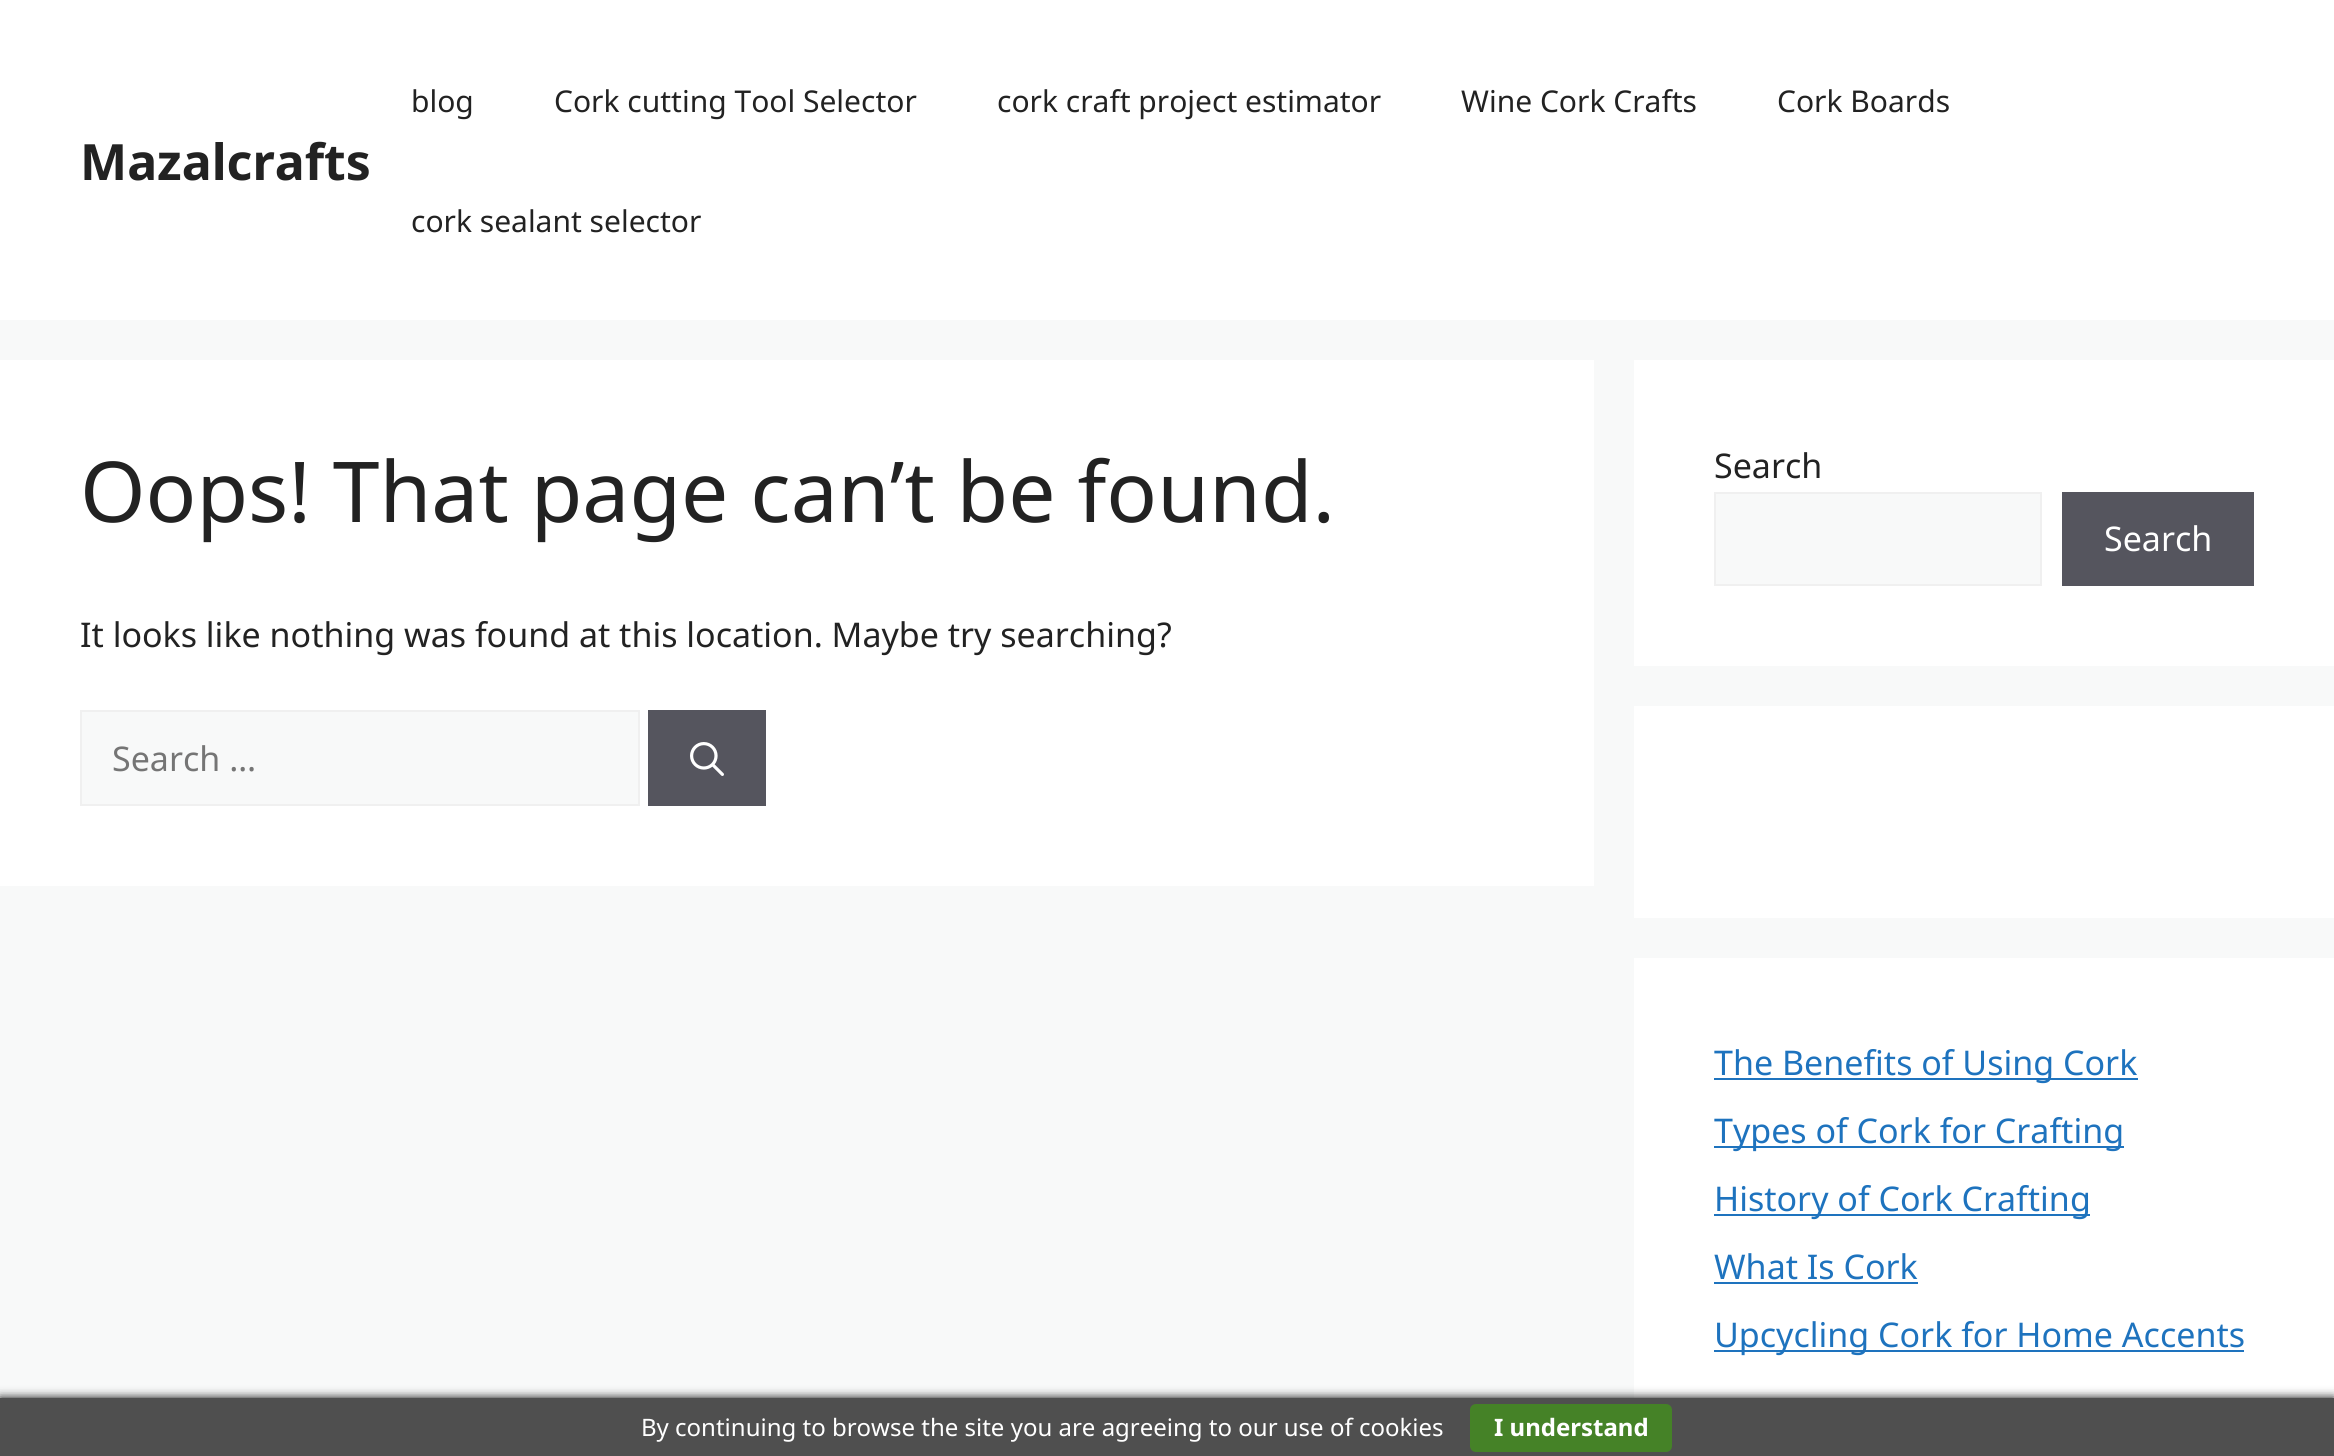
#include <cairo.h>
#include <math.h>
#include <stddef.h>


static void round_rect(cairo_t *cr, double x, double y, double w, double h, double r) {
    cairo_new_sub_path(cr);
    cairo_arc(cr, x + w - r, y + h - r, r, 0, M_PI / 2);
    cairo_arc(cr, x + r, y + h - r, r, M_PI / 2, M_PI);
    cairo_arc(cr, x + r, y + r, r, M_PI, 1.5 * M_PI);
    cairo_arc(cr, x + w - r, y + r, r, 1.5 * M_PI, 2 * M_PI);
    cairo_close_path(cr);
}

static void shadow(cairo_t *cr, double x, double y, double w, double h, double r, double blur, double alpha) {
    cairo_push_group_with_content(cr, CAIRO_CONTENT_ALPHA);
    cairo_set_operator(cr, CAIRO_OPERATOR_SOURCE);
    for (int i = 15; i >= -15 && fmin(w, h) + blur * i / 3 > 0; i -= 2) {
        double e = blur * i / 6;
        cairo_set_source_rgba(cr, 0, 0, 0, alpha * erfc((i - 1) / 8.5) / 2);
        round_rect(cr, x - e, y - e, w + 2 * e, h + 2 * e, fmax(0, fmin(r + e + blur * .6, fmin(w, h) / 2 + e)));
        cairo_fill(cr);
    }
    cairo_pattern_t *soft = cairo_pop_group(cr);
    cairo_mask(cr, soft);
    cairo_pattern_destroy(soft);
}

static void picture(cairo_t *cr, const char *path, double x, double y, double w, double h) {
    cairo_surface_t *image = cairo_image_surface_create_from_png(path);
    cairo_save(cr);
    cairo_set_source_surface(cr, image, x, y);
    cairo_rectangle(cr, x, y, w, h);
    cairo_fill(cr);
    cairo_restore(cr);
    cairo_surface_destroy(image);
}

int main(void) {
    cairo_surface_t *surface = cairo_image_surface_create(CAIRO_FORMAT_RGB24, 2334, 1456);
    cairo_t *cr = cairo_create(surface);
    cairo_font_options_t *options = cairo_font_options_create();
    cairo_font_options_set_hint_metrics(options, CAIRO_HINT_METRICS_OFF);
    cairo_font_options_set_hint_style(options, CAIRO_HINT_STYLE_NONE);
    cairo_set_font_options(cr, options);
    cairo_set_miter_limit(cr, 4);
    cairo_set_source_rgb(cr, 0.969, 0.973, 0.976);
    cairo_paint(cr);
    cairo_set_source_rgb(cr, 1, 1, 1);
    cairo_rectangle(cr, 0, 0, 2334, 320);
    cairo_fill(cr);
    cairo_select_font_face(cr, "Noto Sans", CAIRO_FONT_SLANT_NORMAL, CAIRO_FONT_WEIGHT_BOLD);
    cairo_set_font_size(cr, 50);
    cairo_set_source_rgb(cr, 0.133, 0.133, 0.133);
    cairo_move_to(cr, 80, 180);
    cairo_show_text(cr, "Mazalcrafts");
    cairo_select_font_face(cr, "Noto Sans", CAIRO_FONT_SLANT_NORMAL, CAIRO_FONT_WEIGHT_NORMAL);
    cairo_set_font_size(cr, 30);
    cairo_move_to(cr, 411, 112);
    cairo_show_text(cr, "blog");
    cairo_move_to(cr, 554, 112);
    cairo_show_text(cr, "Cork cutting Tool Selector");
    cairo_move_to(cr, 997, 112);
    cairo_show_text(cr, "cork craft project estimator");
    cairo_move_to(cr, 1461, 112);
    cairo_show_text(cr, "Wine Cork Crafts");
    cairo_move_to(cr, 1777, 112);
    cairo_show_text(cr, "Cork Boards");
    cairo_move_to(cr, 411, 232);
    cairo_show_text(cr, "cork sealant selector");
    cairo_set_source_rgb(cr, 1, 1, 1);
    cairo_rectangle(cr, 0, 360, 1594, 526);
    cairo_fill(cr);
    cairo_set_font_size(cr, 84);
    cairo_set_source_rgb(cr, 0.133, 0.133, 0.133);
    cairo_move_to(cr, 80, 522);
    cairo_show_text(cr, "Oops! That page can’t be found.");
    cairo_set_font_size(cr, 34);
    cairo_move_to(cr, 80, 647);
    cairo_show_text(cr, "It looks like nothing was found at this location. Maybe try searching?");
    cairo_set_source_rgb(cr, 0.969, 0.973, 0.976);
    cairo_rectangle(cr, 81, 711, 558, 94);
    cairo_fill_preserve(cr);
    cairo_set_source_rgb(cr, 0.941, 0.941, 0.941);
    cairo_stroke(cr);
    cairo_set_source_rgb(cr, 0.459, 0.459, 0.459);
    cairo_move_to(cr, 112, 771);
    cairo_show_text(cr, "Search …");
    cairo_set_source_rgb(cr, 0.333, 0.333, 0.369);
    cairo_rectangle(cr, 648, 710, 118, 96);
    cairo_fill(cr);
    picture(cr, "img1.png", 690, 742, 34, 34);
    cairo_set_source_rgb(cr, 1, 1, 1);
    cairo_rectangle(cr, 1634, 360, 700, 306);
    cairo_fill(cr);
    cairo_set_source_rgb(cr, 0.133, 0.133, 0.133);
    cairo_move_to(cr, 1714, 478);
    cairo_show_text(cr, "Search");
    cairo_set_source_rgb(cr, 0.969, 0.973, 0.976);
    cairo_rectangle(cr, 1715, 493, 326, 92);
    cairo_fill_preserve(cr);
    cairo_set_source_rgb(cr, 0.941, 0.941, 0.941);
    cairo_stroke(cr);
    cairo_set_source_rgb(cr, 0.333, 0.333, 0.369);
    cairo_rectangle(cr, 2062, 492, 192, 94);
    cairo_fill(cr);
    cairo_set_source_rgb(cr, 1, 1, 1);
    cairo_move_to(cr, 2104, 551);
    cairo_show_text(cr, "Search");
    cairo_rectangle(cr, 1634, 706, 700, 212);
    cairo_fill(cr);
    cairo_rectangle(cr, 1634, 958, 700, 440);
    cairo_fill(cr);
    cairo_set_source_rgb(cr, 0.118, 0.451, 0.745);
    cairo_rectangle(cr, 1714, 1078, 424, 2);
    cairo_fill(cr);
    cairo_move_to(cr, 1714, 1075);
    cairo_show_text(cr, "The Benefits of Using Cork");
    cairo_rectangle(cr, 1714, 1146, 410, 2);
    cairo_fill(cr);
    cairo_move_to(cr, 1714, 1143);
    cairo_show_text(cr, "Types of Cork for Crafting");
    cairo_rectangle(cr, 1714, 1214, 376, 2);
    cairo_fill(cr);
    cairo_move_to(cr, 1714, 1211);
    cairo_show_text(cr, "History of Cork Crafting");
    cairo_move_to(cr, 1714, 1279);
    cairo_show_text(cr, "What Is Cork");
    cairo_rectangle(cr, 1714, 1282, 204, 2);
    cairo_fill(cr);
    cairo_rectangle(cr, 1714, 1350, 530, 2);
    cairo_fill(cr);
    cairo_move_to(cr, 1714, 1347);
    cairo_show_text(cr, "Upcycling Cork for Home Accents");
    cairo_set_source_rgb(cr, 0, 0, 0);
    shadow(cr, 0, 1398, 2334, 58, 0, 5, 1);
    cairo_set_source_rgb(cr, 0.31, 0.31, 0.31);
    cairo_rectangle(cr, 0, 1398, 2334, 58);
    cairo_fill(cr);
    cairo_set_font_size(cr, 24);
    cairo_set_source_rgb(cr, 1, 1, 1);
    cairo_move_to(cr, 641, 1436);
    cairo_show_text(cr, "By continuing to browse the site you are agreeing to our use of cookies");
    cairo_set_source_rgb(cr, 0.271, 0.51, 0.153);
    round_rect(cr, 1470, 1404, 202, 48, 6);
    cairo_fill(cr);
    cairo_select_font_face(cr, "Noto Sans", CAIRO_FONT_SLANT_NORMAL, CAIRO_FONT_WEIGHT_BOLD);
    cairo_set_source_rgb(cr, 1, 1, 1);
    cairo_move_to(cr, 1494, 1436);
    cairo_show_text(cr, "I understand");
    cairo_surface_write_to_png(surface, "page.png");
    cairo_font_options_destroy(options);
    cairo_destroy(cr);
    cairo_surface_destroy(surface);
    return 0;
}
